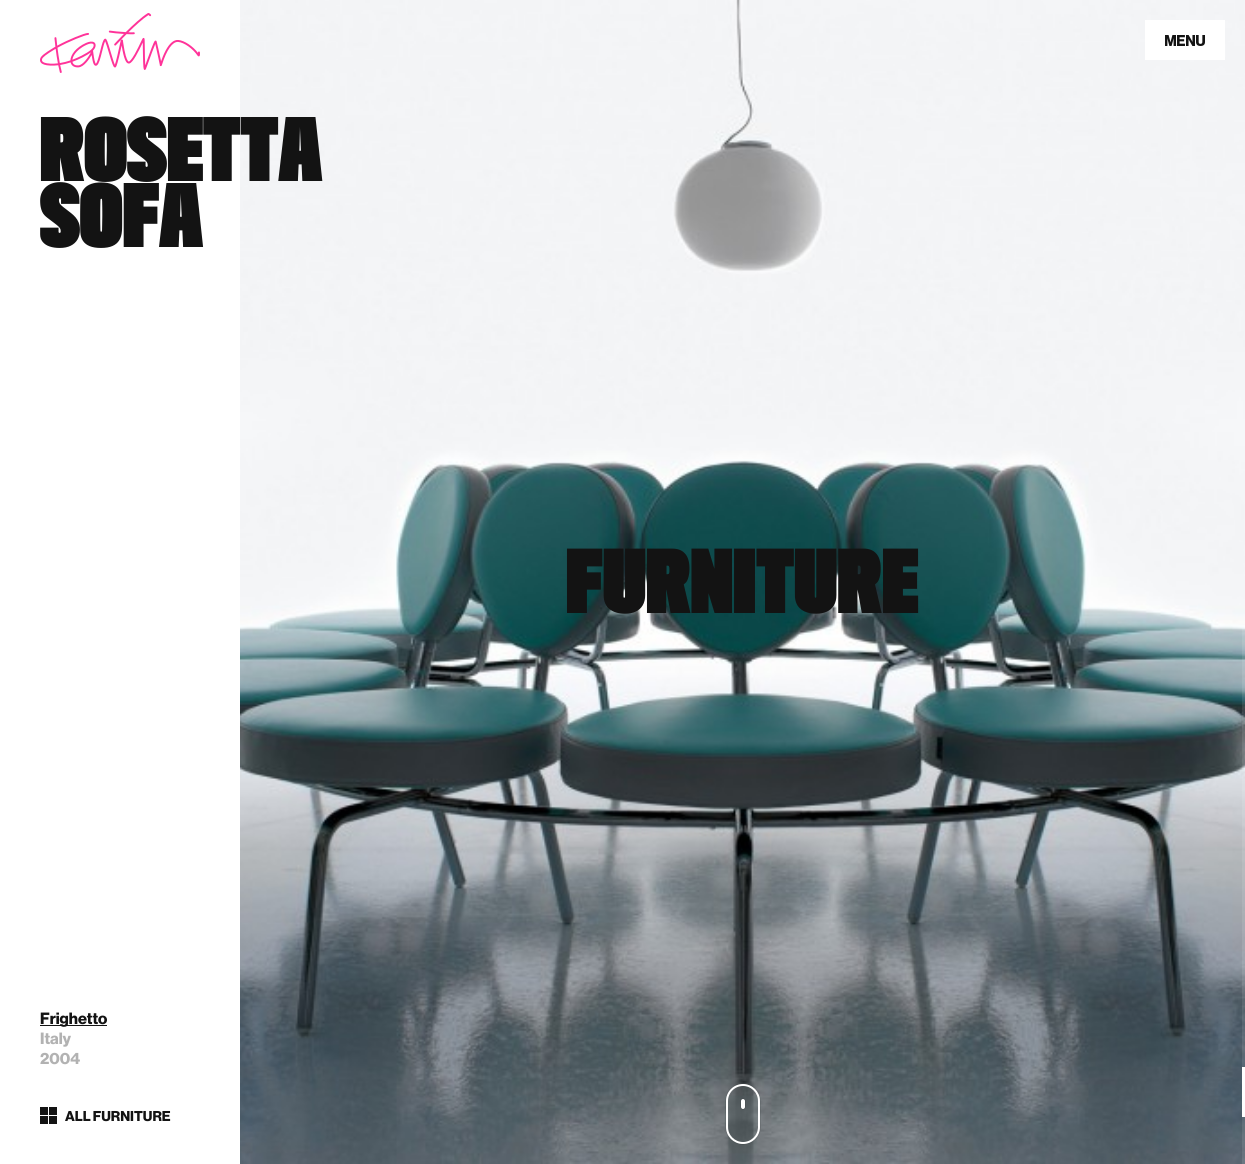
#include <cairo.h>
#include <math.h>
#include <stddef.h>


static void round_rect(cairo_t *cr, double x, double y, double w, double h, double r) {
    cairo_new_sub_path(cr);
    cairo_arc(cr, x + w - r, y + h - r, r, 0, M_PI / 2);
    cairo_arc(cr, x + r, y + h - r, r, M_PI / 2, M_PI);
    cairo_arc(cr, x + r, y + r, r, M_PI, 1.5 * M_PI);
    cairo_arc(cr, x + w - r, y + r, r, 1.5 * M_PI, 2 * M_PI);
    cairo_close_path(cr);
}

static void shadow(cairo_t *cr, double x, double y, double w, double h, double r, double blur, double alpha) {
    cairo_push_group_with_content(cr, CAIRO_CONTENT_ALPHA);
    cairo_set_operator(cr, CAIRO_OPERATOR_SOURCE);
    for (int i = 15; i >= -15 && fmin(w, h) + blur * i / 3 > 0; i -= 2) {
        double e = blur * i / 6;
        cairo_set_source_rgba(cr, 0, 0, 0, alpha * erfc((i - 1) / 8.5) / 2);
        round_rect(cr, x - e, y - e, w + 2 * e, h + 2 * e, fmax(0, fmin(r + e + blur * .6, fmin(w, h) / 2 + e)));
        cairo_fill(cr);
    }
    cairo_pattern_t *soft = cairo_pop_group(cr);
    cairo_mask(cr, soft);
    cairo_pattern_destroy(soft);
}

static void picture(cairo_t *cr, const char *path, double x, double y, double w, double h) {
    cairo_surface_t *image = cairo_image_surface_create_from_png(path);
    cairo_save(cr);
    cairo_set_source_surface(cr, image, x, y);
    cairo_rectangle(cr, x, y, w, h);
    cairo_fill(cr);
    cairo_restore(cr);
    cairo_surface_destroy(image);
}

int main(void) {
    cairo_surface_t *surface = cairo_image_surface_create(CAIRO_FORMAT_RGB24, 1245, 1164);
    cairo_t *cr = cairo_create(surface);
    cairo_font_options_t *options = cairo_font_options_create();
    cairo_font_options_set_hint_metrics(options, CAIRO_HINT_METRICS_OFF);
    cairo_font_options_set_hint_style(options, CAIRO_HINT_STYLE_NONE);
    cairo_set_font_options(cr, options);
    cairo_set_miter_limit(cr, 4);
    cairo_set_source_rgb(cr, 1, 1, 1);
    cairo_paint(cr);
    picture(cr, "img1.png", 40, 13, 160, 60);
    picture(cr, "img3.png", 240, 0, 1005, 582);
    cairo_set_source_rgb(cr, 0.078, 0.078, 0.078);
    cairo_rectangle(cr, 1165, 35, 40, 11);
    cairo_fill(cr);
    picture(cr, "img2.png", 1145, 20, 80, 40);
    cairo_select_font_face(cr, "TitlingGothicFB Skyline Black", CAIRO_FONT_SLANT_NORMAL, CAIRO_FONT_WEIGHT_NORMAL);
    cairo_set_font_size(cr, 80);
    cairo_move_to(cr, 40, 181);
    cairo_show_text(cr, "ROSETTA");
    cairo_move_to(cr, 40, 247);
    cairo_show_text(cr, "SOFA");
    cairo_rectangle(cr, 40, 1025, 67, 1);
    cairo_fill(cr);
    cairo_select_font_face(cr, "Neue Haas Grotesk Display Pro", CAIRO_FONT_SLANT_NORMAL, CAIRO_FONT_WEIGHT_BOLD);
    cairo_set_font_size(cr, 16);
    cairo_move_to(cr, 40, 1024);
    cairo_show_text(cr, "Frighetto");
    cairo_set_source_rgb(cr, 0.698, 0.698, 0.698);
    cairo_move_to(cr, 40, 1044);
    cairo_show_text(cr, "Italy");
    cairo_move_to(cr, 40, 1064);
    cairo_show_text(cr, "2004");
    picture(cr, "img4.png", 240, 582, 1005, 582);
    cairo_save(cr);
    cairo_set_fill_rule(cr, CAIRO_FILL_RULE_EVEN_ODD);
    cairo_new_path(cr);
    cairo_move_to(cr, 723, 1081);
    cairo_line_to(cr, 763, 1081);
    cairo_line_to(cr, 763, 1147);
    cairo_line_to(cr, 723, 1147);
    cairo_close_path(cr);
    cairo_move_to(cr, 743, 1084);
    cairo_curve_to(cr, 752.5, 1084, 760, 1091.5, 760, 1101);
    cairo_line_to(cr, 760, 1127);
    cairo_curve_to(cr, 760, 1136.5, 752.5, 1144, 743, 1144);
    cairo_curve_to(cr, 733.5, 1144, 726, 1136.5, 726, 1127);
    cairo_line_to(cr, 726, 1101);
    cairo_curve_to(cr, 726, 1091.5, 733.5, 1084, 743, 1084);
    cairo_close_path(cr);
    cairo_clip(cr);
    cairo_set_source_rgb(cr, 0, 0, 0);
    shadow(cr, 726, 1084, 34, 60, 17, 0.5, 0.4);
    cairo_restore(cr);
    round_rect(cr, 727, 1085, 32, 58, 16);
    cairo_set_source_rgb(cr, 1, 1, 1);
    cairo_stroke(cr);
    cairo_set_source_rgb(cr, 0, 0, 0);
    shadow(cr, 741, 1099, 4, 10, 2, 0.5, 0.4);
    cairo_set_source_rgb(cr, 1, 1, 1);
    round_rect(cr, 741, 1099, 4, 10, 2);
    cairo_fill(cr);
    cairo_select_font_face(cr, "TitlingGothicFB Skyline Black", CAIRO_FONT_SLANT_NORMAL, CAIRO_FONT_WEIGHT_NORMAL);
    cairo_set_font_size(cr, 80.5);
    cairo_set_source_rgb(cr, 0.078, 0.078, 0.078);
    cairo_move_to(cr, 566, 613);
    cairo_show_text(cr, "FURNITURE");
    cairo_rectangle(cr, 40, 1107, 17, 17);
    cairo_fill(cr);
    cairo_set_source_rgb(cr, 1, 1, 1);
    cairo_rectangle(cr, 40, 1115, 17, 1);
    cairo_fill(cr);
    cairo_rectangle(cr, 48, 1107, 1, 17);
    cairo_fill(cr);
    cairo_select_font_face(cr, "Neue Haas Grotesk Display Pro", CAIRO_FONT_SLANT_NORMAL, CAIRO_FONT_WEIGHT_BOLD);
    cairo_set_font_size(cr, 14);
    cairo_set_source_rgb(cr, 0.078, 0.078, 0.078);
    cairo_move_to(cr, 65, 1121);
    cairo_show_text(cr, "ALL FURNITURE");
    cairo_set_source_rgba(cr, 1, 1, 1, 0.1);
    cairo_rectangle(cr, 1242, 628, 3, 536);
    cairo_fill(cr);
    cairo_set_source_rgb(cr, 1, 1, 1);
    cairo_rectangle(cr, 1242, 1067, 3, 50);
    cairo_fill(cr);
    cairo_surface_write_to_png(surface, "page.png");
    cairo_font_options_destroy(options);
    cairo_destroy(cr);
    cairo_surface_destroy(surface);
    return 0;
}
